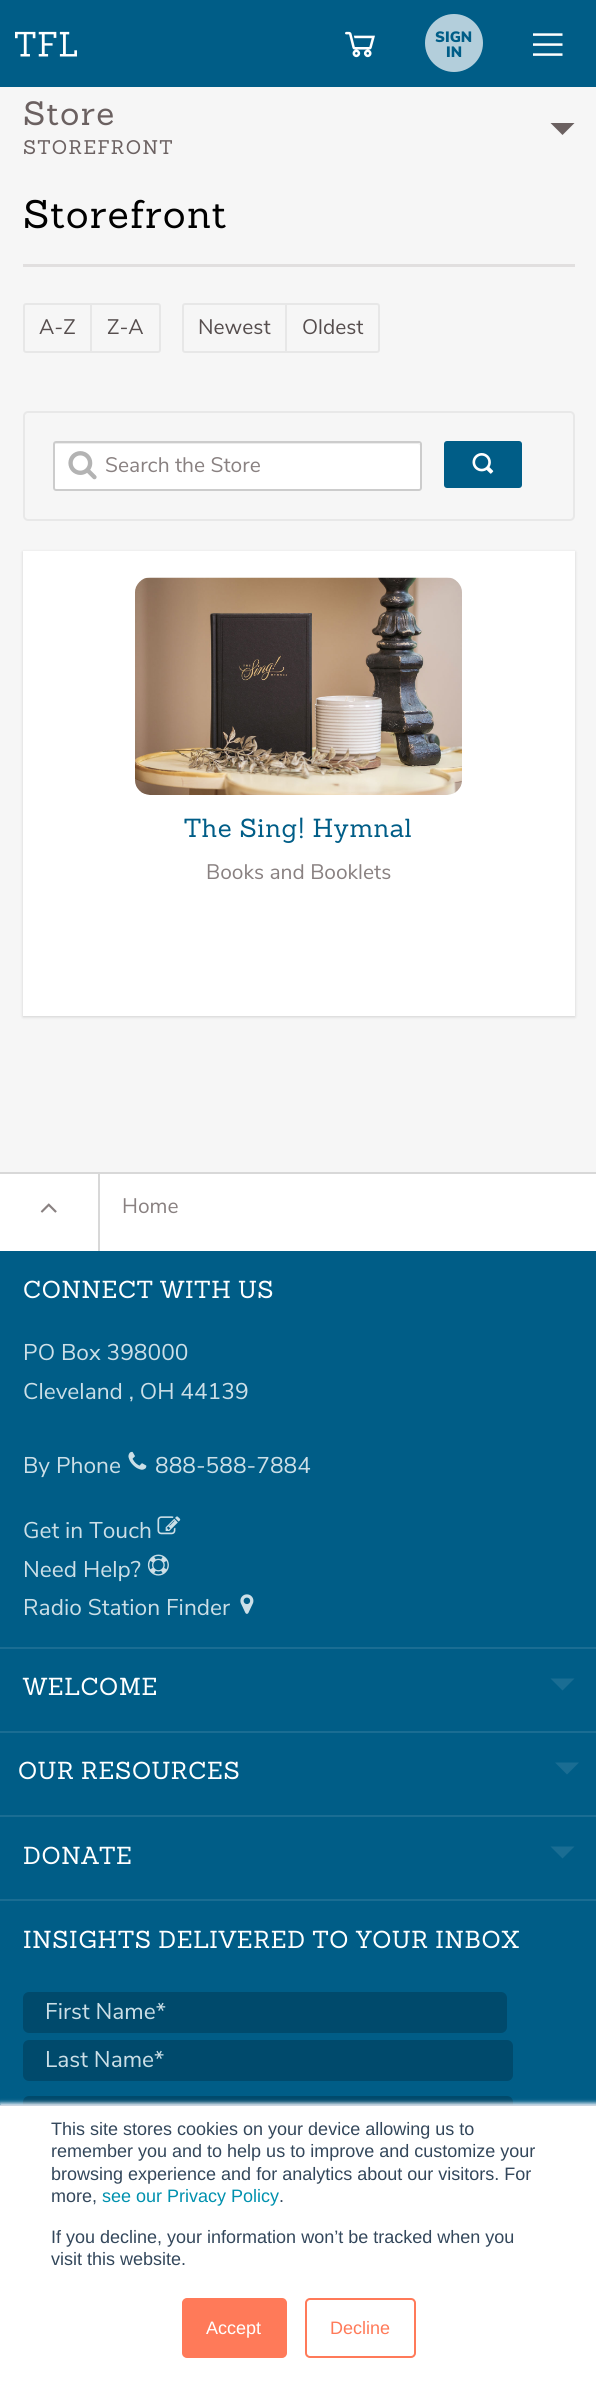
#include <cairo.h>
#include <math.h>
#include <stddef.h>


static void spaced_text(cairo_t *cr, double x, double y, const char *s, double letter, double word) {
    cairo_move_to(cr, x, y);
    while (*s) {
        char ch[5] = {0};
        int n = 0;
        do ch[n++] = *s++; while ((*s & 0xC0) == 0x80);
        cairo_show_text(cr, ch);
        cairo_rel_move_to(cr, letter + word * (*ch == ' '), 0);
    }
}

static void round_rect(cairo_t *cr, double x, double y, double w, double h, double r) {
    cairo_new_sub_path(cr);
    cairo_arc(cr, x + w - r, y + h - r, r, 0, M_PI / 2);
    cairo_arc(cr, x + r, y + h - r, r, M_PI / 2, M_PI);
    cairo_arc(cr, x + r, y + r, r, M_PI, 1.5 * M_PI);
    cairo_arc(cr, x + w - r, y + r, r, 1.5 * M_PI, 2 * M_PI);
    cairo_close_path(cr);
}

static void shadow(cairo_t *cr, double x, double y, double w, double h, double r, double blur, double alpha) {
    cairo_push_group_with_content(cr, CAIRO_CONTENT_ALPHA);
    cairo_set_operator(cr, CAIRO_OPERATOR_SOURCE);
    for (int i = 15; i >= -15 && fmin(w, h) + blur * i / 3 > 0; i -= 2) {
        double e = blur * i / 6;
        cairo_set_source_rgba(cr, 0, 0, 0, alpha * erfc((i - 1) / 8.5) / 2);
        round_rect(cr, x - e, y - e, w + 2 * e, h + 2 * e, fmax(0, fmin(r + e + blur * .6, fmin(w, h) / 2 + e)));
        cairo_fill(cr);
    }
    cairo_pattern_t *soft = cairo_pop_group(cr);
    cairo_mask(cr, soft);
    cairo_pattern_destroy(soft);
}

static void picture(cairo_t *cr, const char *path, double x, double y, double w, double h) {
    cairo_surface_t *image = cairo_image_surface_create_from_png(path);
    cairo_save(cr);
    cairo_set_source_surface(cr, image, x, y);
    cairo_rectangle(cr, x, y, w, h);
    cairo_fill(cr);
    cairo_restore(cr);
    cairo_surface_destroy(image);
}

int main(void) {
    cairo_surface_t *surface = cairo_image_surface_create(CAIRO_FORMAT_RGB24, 596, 2387);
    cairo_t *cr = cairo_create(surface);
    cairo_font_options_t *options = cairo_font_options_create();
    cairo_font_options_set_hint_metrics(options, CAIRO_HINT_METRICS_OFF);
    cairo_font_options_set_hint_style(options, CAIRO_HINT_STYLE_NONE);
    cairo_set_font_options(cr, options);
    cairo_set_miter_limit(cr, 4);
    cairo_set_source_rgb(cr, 0.961, 0.961, 0.961);
    cairo_paint(cr);
    cairo_set_source_rgb(cr, 0, 0.365, 0.529);
    cairo_rectangle(cr, 0, 0, 596, 87);
    cairo_fill(cr);
    picture(cr, "img1.png", 15, 31, 62, 26);
    picture(cr, "img2.png", 345, 31, 30, 27);
    cairo_set_source_rgb(cr, 0.702, 0.808, 0.859);
    cairo_arc(cr, 454, 43, 29, 0, 2 * M_PI);
    cairo_fill(cr);
    cairo_select_font_face(cr, "Nunito Sans Black", CAIRO_FONT_SLANT_NORMAL, CAIRO_FONT_WEIGHT_NORMAL);
    cairo_set_font_size(cr, 15);
    cairo_set_source_rgb(cr, 0, 0.365, 0.529);
    cairo_move_to(cr, 435, 42);
    cairo_show_text(cr, "SIGN");
    cairo_move_to(cr, 446, 57);
    cairo_show_text(cr, "IN");
    picture(cr, "img3.png", 533, 33, 30, 23);
    cairo_select_font_face(cr, "Sanchez", CAIRO_FONT_SLANT_NORMAL, CAIRO_FONT_WEIGHT_NORMAL);
    cairo_set_font_size(cr, 33);
    cairo_set_source_rgb(cr, 0.42, 0.38, 0.38);
    spaced_text(cr, 23, 125, "Store", 1.5, 0);
    cairo_new_path(cr);
    cairo_move_to(cr, 550.5, 123);
    cairo_line_to(cr, 574.5, 123);
    cairo_line_to(cr, 562.5, 135);
    cairo_close_path(cr);
    cairo_fill(cr);
    cairo_set_font_size(cr, 19.25);
    spaced_text(cr, 23, 154, "STOREFRONT", 1.5, 0);
    cairo_set_font_size(cr, 39);
    cairo_set_source_rgb(cr, 0, 0, 0);
    spaced_text(cr, 23, 228, "Storefront", 1.25, 0);
    cairo_set_source_rgb(cr, 0.882, 0.875, 0.875);
    cairo_rectangle(cr, 23, 264, 552, 3);
    cairo_fill(cr);
    cairo_new_path(cr);
    cairo_move_to(cr, 91, 304);
    cairo_line_to(cr, 158, 304);
    cairo_curve_to(cr, 159, 304, 160, 305, 160, 306);
    cairo_line_to(cr, 160, 350);
    cairo_curve_to(cr, 160, 351, 159, 352, 158, 352);
    cairo_line_to(cr, 91, 352);
    cairo_close_path(cr);
    cairo_set_source_rgb(cr, 0.906, 0.906, 0.906);
    cairo_stroke(cr);
    cairo_set_source_rgb(cr, 0.961, 0.961, 0.961);
    cairo_new_path(cr);
    cairo_move_to(cr, 26, 304);
    cairo_line_to(cr, 91, 304);
    cairo_line_to(cr, 91, 352);
    cairo_line_to(cr, 26, 352);
    cairo_curve_to(cr, 25, 352, 24, 351, 24, 350);
    cairo_line_to(cr, 24, 306);
    cairo_curve_to(cr, 24, 305, 25, 304, 26, 304);
    cairo_close_path(cr);
    cairo_fill_preserve(cr);
    cairo_set_source_rgb(cr, 0.906, 0.906, 0.906);
    cairo_stroke(cr);
    cairo_select_font_face(cr, "Nunito Sans", CAIRO_FONT_SLANT_NORMAL, CAIRO_FONT_WEIGHT_NORMAL);
    cairo_set_font_size(cr, 21);
    cairo_set_source_rgb(cr, 0.337, 0.306, 0.306);
    cairo_move_to(cr, 39, 334);
    cairo_show_text(cr, "A-Z");
    cairo_move_to(cr, 107, 334);
    cairo_show_text(cr, "Z-A");
    cairo_new_path(cr);
    cairo_move_to(cr, 185, 304);
    cairo_line_to(cr, 286, 304);
    cairo_line_to(cr, 286, 352);
    cairo_line_to(cr, 185, 352);
    cairo_curve_to(cr, 184, 352, 183, 351, 183, 350);
    cairo_line_to(cr, 183, 306);
    cairo_curve_to(cr, 183, 305, 184, 304, 185, 304);
    cairo_close_path(cr);
    cairo_set_source_rgb(cr, 0.906, 0.906, 0.906);
    cairo_stroke(cr);
    cairo_set_source_rgb(cr, 0.337, 0.306, 0.306);
    cairo_move_to(cr, 198, 334);
    cairo_show_text(cr, "Newest");
    cairo_set_source_rgb(cr, 0.961, 0.961, 0.961);
    cairo_new_path(cr);
    cairo_move_to(cr, 286, 304);
    cairo_line_to(cr, 377, 304);
    cairo_curve_to(cr, 378, 304, 379, 305, 379, 306);
    cairo_line_to(cr, 379, 350);
    cairo_curve_to(cr, 379, 351, 378, 352, 377, 352);
    cairo_line_to(cr, 286, 352);
    cairo_close_path(cr);
    cairo_fill_preserve(cr);
    cairo_set_source_rgb(cr, 0.906, 0.906, 0.906);
    cairo_stroke(cr);
    cairo_set_source_rgb(cr, 0.337, 0.306, 0.306);
    cairo_move_to(cr, 302, 334);
    cairo_show_text(cr, "Oldest");
    round_rect(cr, 24, 412, 550, 108, 4);
    cairo_set_source_rgb(cr, 0.91, 0.91, 0.91);
    cairo_stroke(cr);
    cairo_set_source_rgb(cr, 1, 1, 1);
    round_rect(cr, 53, 441, 369, 50, 3);
    cairo_fill(cr);
    cairo_set_source_rgb(cr, 0.925, 0.925, 0.925);
    cairo_new_path(cr);
    cairo_move_to(cr, 56, 444);
    cairo_line_to(cr, 418, 444);
    cairo_curve_to(cr, 419, 444, 420, 445, 420, 446);
    cairo_curve_to(cr, 420, 445, 420, 443, 418, 443);
    cairo_line_to(cr, 56, 443);
    cairo_curve_to(cr, 54, 443, 54, 445, 54, 446);
    cairo_curve_to(cr, 54, 445, 55, 444, 56, 444);
    cairo_close_path(cr);
    cairo_fill(cr);
    round_rect(cr, 54, 442, 367, 48, 2);
    cairo_set_source_rgb(cr, 0.8, 0.8, 0.8);
    cairo_stroke(cr);
    picture(cr, "img4.png", 68, 451, 29, 29);
    cairo_set_source_rgb(cr, 0.537, 0.506, 0.506);
    cairo_move_to(cr, 105, 472);
    cairo_show_text(cr, "Search the Store");
    cairo_set_source_rgb(cr, 0, 0.365, 0.529);
    round_rect(cr, 444, 441, 78, 47, 3);
    cairo_fill(cr);
    picture(cr, "img5.png", 472, 453, 22, 21);
    cairo_set_source_rgb(cr, 0, 0, 0);
    shadow(cr, 23, 552, 552, 465, 0, 1.5, 0.15);
    cairo_set_source_rgb(cr, 1, 1, 1);
    cairo_rectangle(cr, 23, 551, 552, 465);
    cairo_fill(cr);
    picture(cr, "img6.png", 135, 577, 327, 218);
    cairo_select_font_face(cr, "Sanchez", CAIRO_FONT_SLANT_NORMAL, CAIRO_FONT_WEIGHT_NORMAL);
    cairo_set_font_size(cr, 25.5);
    cairo_set_source_rgb(cr, 0, 0.365, 0.529);
    spaced_text(cr, 184, 837, "The Sing! Hymnal", 0.75, 0);
    cairo_select_font_face(cr, "Nunito Sans", CAIRO_FONT_SLANT_NORMAL, CAIRO_FONT_WEIGHT_NORMAL);
    cairo_set_font_size(cr, 21);
    cairo_set_source_rgb(cr, 0.537, 0.506, 0.506);
    cairo_move_to(cr, 206, 879);
    cairo_show_text(cr, "Books and Booklets");
    cairo_set_source_rgb(cr, 1, 1, 1);
    cairo_rectangle(cr, 0, 1174, 596, 77);
    cairo_fill(cr);
    cairo_set_source_rgb(cr, 0.847, 0.847, 0.847);
    cairo_rectangle(cr, 0, 1172, 596, 2);
    cairo_fill(cr);
    cairo_rectangle(cr, 98, 1173, 2, 78);
    cairo_fill(cr);
    picture(cr, "img7.png", 40, 1203, 17, 10);
    cairo_set_source_rgb(cr, 0.537, 0.506, 0.506);
    cairo_move_to(cr, 122, 1213);
    cairo_show_text(cr, "Home");
    cairo_set_source_rgb(cr, 0, 0.365, 0.529);
    cairo_rectangle(cr, 0, 1251, 596, 854);
    cairo_fill(cr);
    cairo_select_font_face(cr, "Sanchez", CAIRO_FONT_SLANT_NORMAL, CAIRO_FONT_WEIGHT_NORMAL);
    cairo_set_font_size(cr, 24);
    cairo_set_source_rgb(cr, 1, 1, 1);
    spaced_text(cr, 23, 1298, "CONNECT WITH US", 0.75, 0);
    cairo_select_font_face(cr, "Nunito Sans", CAIRO_FONT_SLANT_NORMAL, CAIRO_FONT_WEIGHT_NORMAL);
    cairo_set_font_size(cr, 22.75);
    cairo_set_source_rgb(cr, 0.8, 0.875, 0.906);
    cairo_move_to(cr, 23, 1360);
    cairo_show_text(cr, "PO Box 398000");
    cairo_move_to(cr, 23, 1399);
    cairo_show_text(cr, "Cleveland , OH 44139");
    cairo_move_to(cr, 23, 1473);
    cairo_show_text(cr, "By Phone");
    picture(cr, "img8.png", 128, 1451, 19, 19);
    cairo_move_to(cr, 155, 1473);
    cairo_show_text(cr, "888-588-7884");
    cairo_move_to(cr, 23, 1538);
    cairo_show_text(cr, "Get in Touch");
    picture(cr, "img9.png", 157, 1516, 24, 19);
    cairo_move_to(cr, 23, 1577);
    cairo_show_text(cr, "Need Help?");
    picture(cr, "img10.png", 147, 1554, 22, 22);
    cairo_move_to(cr, 23, 1615);
    cairo_show_text(cr, "Radio Station Finder");
    picture(cr, "img11.png", 240, 1594, 14, 20);
    cairo_set_source_rgb(cr, 0.102, 0.427, 0.576);
    cairo_rectangle(cr, 0, 1647, 596, 2);
    cairo_fill(cr);
    cairo_rectangle(cr, 0, 1731, 596, 2);
    cairo_fill(cr);
    cairo_select_font_face(cr, "Sanchez", CAIRO_FONT_SLANT_NORMAL, CAIRO_FONT_WEIGHT_NORMAL);
    cairo_set_font_size(cr, 24);
    cairo_set_source_rgb(cr, 1, 1, 1);
    spaced_text(cr, 23, 1695, "WELCOME", 0.75, 0);
    cairo_set_source_rgb(cr, 0.102, 0.427, 0.576);
    cairo_new_path(cr);
    cairo_move_to(cr, 550.5, 1678.5);
    cairo_line_to(cr, 574.5, 1678.5);
    cairo_line_to(cr, 562.5, 1690.5);
    cairo_close_path(cr);
    cairo_fill(cr);
    cairo_rectangle(cr, 0, 1815, 596, 2);
    cairo_fill(cr);
    cairo_set_source_rgb(cr, 1, 1, 1);
    spaced_text(cr, 18, 1779, "OUR RESOURCES", 0.75, 0);
    cairo_set_source_rgb(cr, 0.102, 0.427, 0.576);
    cairo_new_path(cr);
    cairo_move_to(cr, 555, 1762.5);
    cairo_line_to(cr, 579, 1762.5);
    cairo_line_to(cr, 567, 1774.5);
    cairo_close_path(cr);
    cairo_fill(cr);
    cairo_rectangle(cr, 0, 1899, 596, 2);
    cairo_fill(cr);
    cairo_set_source_rgb(cr, 1, 1, 1);
    spaced_text(cr, 23, 1864, "DONATE", 0.75, 0);
    cairo_set_source_rgb(cr, 0.102, 0.427, 0.576);
    cairo_new_path(cr);
    cairo_move_to(cr, 550.5, 1846.5);
    cairo_line_to(cr, 574.5, 1846.5);
    cairo_line_to(cr, 562.5, 1858.5);
    cairo_close_path(cr);
    cairo_fill(cr);
    cairo_set_source_rgb(cr, 1, 1, 1);
    spaced_text(cr, 23, 1948, "INSIGHTS DELIVERED TO YOUR INBOX", 0.75, 0);
    cairo_set_source_rgb(cr, 0, 0.29, 0.424);
    round_rect(cr, 23, 1992, 484, 41, 6);
    cairo_fill(cr);
    cairo_select_font_face(cr, "Nunito Sans", CAIRO_FONT_SLANT_NORMAL, CAIRO_FONT_WEIGHT_NORMAL);
    cairo_set_font_size(cr, 22.75);
    cairo_set_source_rgb(cr, 0.8, 0.875, 0.906);
    cairo_move_to(cr, 45, 2019);
    cairo_show_text(cr, "First Name*");
    cairo_set_source_rgb(cr, 0, 0.29, 0.424);
    round_rect(cr, 23, 2040, 490, 41, 6);
    cairo_fill(cr);
    cairo_set_source_rgb(cr, 0.8, 0.875, 0.906);
    cairo_move_to(cr, 45, 2067);
    cairo_show_text(cr, "Last Name*");
    cairo_set_source_rgb(cr, 0, 0.29, 0.424);
    round_rect(cr, 23, 2096, 490, 40, 6);
    cairo_fill(cr);
    cairo_set_source_rgb(cr, 0.918, 0.941, 0.965);
    shadow(cr, 0, 2103, 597, 284, 0, 2, 1);
    cairo_set_source_rgb(cr, 0.796, 0.839, 0.886);
    cairo_rectangle(cr, 0, 2105, 596, 1);
    cairo_fill(cr);
    cairo_set_source_rgb(cr, 1, 1, 1);
    cairo_rectangle(cr, 0, 2106, 596, 281);
    cairo_fill(cr);
    cairo_select_font_face(cr, "Liberation Sans", CAIRO_FONT_SLANT_NORMAL, CAIRO_FONT_WEIGHT_NORMAL);
    cairo_set_font_size(cr, 18);
    cairo_set_source_rgb(cr, 0.2, 0.278, 0.357);
    cairo_move_to(cr, 51, 2135);
    cairo_show_text(cr, "This site stores cookies on your device allowing us to");
    cairo_move_to(cr, 51, 2157);
    cairo_show_text(cr, "remember you and to help us to improve and customize your");
    cairo_move_to(cr, 51, 2180);
    cairo_show_text(cr, "browsing experience and for analytics about our visitors. For");
    cairo_move_to(cr, 51, 2202);
    cairo_show_text(cr, "more,");
    cairo_set_source_rgb(cr, 0, 0.569, 0.682);
    cairo_move_to(cr, 102, 2202);
    cairo_show_text(cr, "see our Privacy Policy");
    cairo_set_source_rgb(cr, 0.2, 0.278, 0.357);
    cairo_move_to(cr, 279, 2202);
    cairo_show_text(cr, ".");
    cairo_move_to(cr, 51, 2243);
    cairo_show_text(cr, "If you decline, your information won’t be tracked when you");
    cairo_move_to(cr, 51, 2265);
    cairo_show_text(cr, "visit this website.");
    cairo_set_source_rgb(cr, 1, 0.478, 0.349);
    round_rect(cr, 183, 2299, 103, 58, 4);
    cairo_fill_preserve(cr);
    cairo_stroke(cr);
    cairo_set_source_rgb(cr, 1, 1, 1);
    cairo_move_to(cr, 206, 2334);
    cairo_show_text(cr, "Accept");
    round_rect(cr, 306, 2299, 109, 58, 4);
    cairo_set_source_rgb(cr, 1, 0.478, 0.349);
    cairo_stroke(cr);
    cairo_move_to(cr, 330, 2334);
    cairo_show_text(cr, "Decline");
    cairo_surface_write_to_png(surface, "page.png");
    cairo_font_options_destroy(options);
    cairo_destroy(cr);
    cairo_surface_destroy(surface);
    return 0;
}
